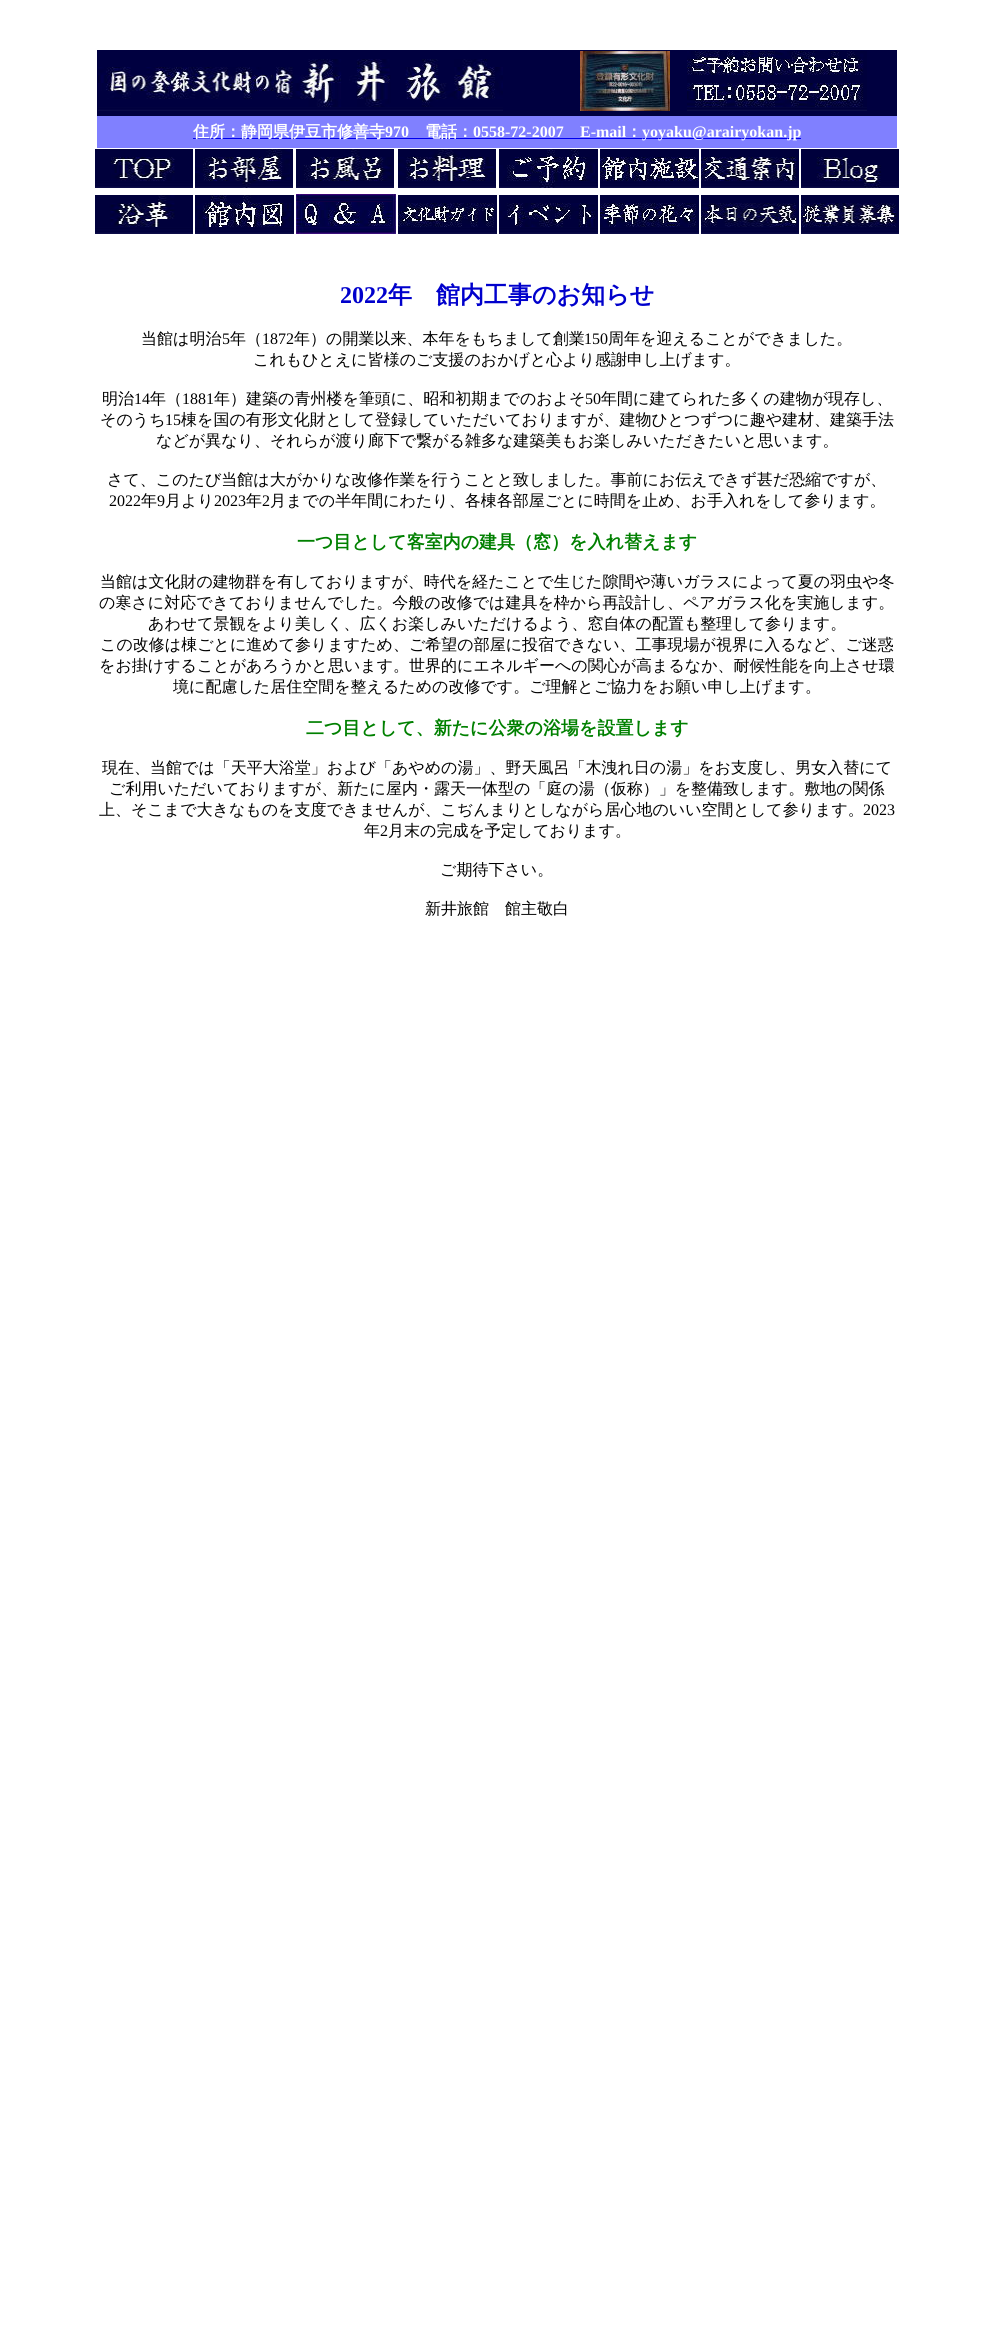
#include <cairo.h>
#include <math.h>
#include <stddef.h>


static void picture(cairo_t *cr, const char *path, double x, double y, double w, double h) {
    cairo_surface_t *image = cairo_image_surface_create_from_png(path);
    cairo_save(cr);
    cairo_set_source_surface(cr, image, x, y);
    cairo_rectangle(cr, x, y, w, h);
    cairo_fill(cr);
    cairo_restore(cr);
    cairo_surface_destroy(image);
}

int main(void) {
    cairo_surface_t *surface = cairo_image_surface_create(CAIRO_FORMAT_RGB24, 994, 2346);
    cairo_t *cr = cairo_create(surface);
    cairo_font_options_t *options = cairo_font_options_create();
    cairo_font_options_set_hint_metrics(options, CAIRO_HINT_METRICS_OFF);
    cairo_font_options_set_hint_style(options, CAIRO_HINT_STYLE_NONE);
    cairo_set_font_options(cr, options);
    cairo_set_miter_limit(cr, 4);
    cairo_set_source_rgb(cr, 1, 1, 1);
    cairo_paint(cr);
    cairo_set_source_rgb(cr, 0, 0, 0.251);
    cairo_rectangle(cr, 97, 50, 800, 66);
    cairo_fill(cr);
    picture(cr, "img1.png", 98, 59, 405, 52);
    picture(cr, "img2.png", 580, 51, 90, 60);
    picture(cr, "img3.png", 687, 51, 180, 60);
    cairo_set_source_rgb(cr, 0.502, 0.502, 1);
    cairo_rectangle(cr, 97, 116, 800, 32);
    cairo_fill(cr);
    cairo_set_source_rgb(cr, 0, 0, 0.933);
    cairo_rectangle(cr, 193, 138, 608, 1);
    cairo_fill(cr);
    cairo_select_font_face(cr, "WenQuanYi Zen Hei", CAIRO_FONT_SLANT_NORMAL, CAIRO_FONT_WEIGHT_BOLD);
    cairo_set_font_size(cr, 16);
    cairo_set_source_rgb(cr, 1, 1, 1);
    cairo_move_to(cr, 193, 137);
    cairo_show_text(cr, "住所：静岡県伊豆市修善寺");
    cairo_select_font_face(cr, "Liberation Serif", CAIRO_FONT_SLANT_NORMAL, CAIRO_FONT_WEIGHT_BOLD);
    cairo_move_to(cr, 385, 137);
    cairo_show_text(cr, "970");
    cairo_select_font_face(cr, "WenQuanYi Zen Hei", CAIRO_FONT_SLANT_NORMAL, CAIRO_FONT_WEIGHT_BOLD);
    cairo_move_to(cr, 425, 137);
    cairo_show_text(cr, "電話：");
    cairo_select_font_face(cr, "Liberation Serif", CAIRO_FONT_SLANT_NORMAL, CAIRO_FONT_WEIGHT_BOLD);
    cairo_move_to(cr, 473, 137);
    cairo_show_text(cr, "0558-72-2007");
    cairo_move_to(cr, 580, 137);
    cairo_show_text(cr, "E-mail");
    cairo_select_font_face(cr, "WenQuanYi Zen Hei", CAIRO_FONT_SLANT_NORMAL, CAIRO_FONT_WEIGHT_BOLD);
    cairo_move_to(cr, 626, 137);
    cairo_show_text(cr, "：");
    cairo_select_font_face(cr, "Liberation Serif", CAIRO_FONT_SLANT_NORMAL, CAIRO_FONT_WEIGHT_BOLD);
    cairo_move_to(cr, 642, 137);
    cairo_show_text(cr, "yoyaku@arairyokan.jp");
    picture(cr, "img4.png", 95, 149, 98, 39);
    picture(cr, "img5.png", 195, 149, 98, 39);
    picture(cr, "img6.png", 296, 149, 98, 39);
    picture(cr, "img7.png", 398, 149, 98, 39);
    picture(cr, "img8.png", 499, 149, 99, 39);
    picture(cr, "img9.png", 600, 149, 99, 39);
    picture(cr, "img10.png", 701, 149, 98, 39);
    picture(cr, "img11.png", 801, 149, 98, 39);
    picture(cr, "img12.png", 95, 195, 98, 39);
    picture(cr, "img13.png", 195, 195, 99, 39);
    picture(cr, "img14.png", 296, 194, 100, 40);
    picture(cr, "img15.png", 398, 195, 99, 39);
    picture(cr, "img16.png", 499, 195, 99, 39);
    picture(cr, "img17.png", 600, 195, 99, 39);
    picture(cr, "img18.png", 701, 195, 98, 39);
    picture(cr, "img19.png", 801, 195, 98, 39);
    cairo_set_font_size(cr, 24);
    cairo_set_source_rgb(cr, 0, 0, 0.8);
    cairo_move_to(cr, 340, 303);
    cairo_show_text(cr, "2022");
    cairo_select_font_face(cr, "WenQuanYi Zen Hei", CAIRO_FONT_SLANT_NORMAL, CAIRO_FONT_WEIGHT_BOLD);
    cairo_move_to(cr, 388, 303);
    cairo_show_text(cr, "年　館内工事のお知らせ");
    cairo_select_font_face(cr, "WenQuanYi Zen Hei Medium", CAIRO_FONT_SLANT_NORMAL, CAIRO_FONT_WEIGHT_NORMAL);
    cairo_set_font_size(cr, 16);
    cairo_set_source_rgb(cr, 0, 0, 0);
    cairo_move_to(cr, 141, 344);
    cairo_show_text(cr, "当館は明治");
    cairo_select_font_face(cr, "Liberation Serif", CAIRO_FONT_SLANT_NORMAL, CAIRO_FONT_WEIGHT_NORMAL);
    cairo_move_to(cr, 222, 344);
    cairo_show_text(cr, "5");
    cairo_select_font_face(cr, "WenQuanYi Zen Hei Medium", CAIRO_FONT_SLANT_NORMAL, CAIRO_FONT_WEIGHT_NORMAL);
    cairo_move_to(cr, 230, 344);
    cairo_show_text(cr, "年（");
    cairo_select_font_face(cr, "Liberation Serif", CAIRO_FONT_SLANT_NORMAL, CAIRO_FONT_WEIGHT_NORMAL);
    cairo_move_to(cr, 262, 344);
    cairo_show_text(cr, "1872");
    cairo_select_font_face(cr, "WenQuanYi Zen Hei Medium", CAIRO_FONT_SLANT_NORMAL, CAIRO_FONT_WEIGHT_NORMAL);
    cairo_move_to(cr, 294, 344);
    cairo_show_text(cr, "年）の開業以来、本年をもちまして創業");
    cairo_select_font_face(cr, "Liberation Serif", CAIRO_FONT_SLANT_NORMAL, CAIRO_FONT_WEIGHT_NORMAL);
    cairo_move_to(cr, 584, 344);
    cairo_show_text(cr, "150");
    cairo_select_font_face(cr, "WenQuanYi Zen Hei Medium", CAIRO_FONT_SLANT_NORMAL, CAIRO_FONT_WEIGHT_NORMAL);
    cairo_move_to(cr, 608, 344);
    cairo_show_text(cr, "周年を迎えることができました。");
    cairo_move_to(cr, 253, 365);
    cairo_show_text(cr, "これもひとえに皆様のご支援のおかげと心より感謝申し上げます。");
    cairo_move_to(cr, 102, 404);
    cairo_show_text(cr, "明治");
    cairo_select_font_face(cr, "Liberation Serif", CAIRO_FONT_SLANT_NORMAL, CAIRO_FONT_WEIGHT_NORMAL);
    cairo_move_to(cr, 134, 404);
    cairo_show_text(cr, "14");
    cairo_select_font_face(cr, "WenQuanYi Zen Hei Medium", CAIRO_FONT_SLANT_NORMAL, CAIRO_FONT_WEIGHT_NORMAL);
    cairo_move_to(cr, 150, 404);
    cairo_show_text(cr, "年（");
    cairo_select_font_face(cr, "Liberation Serif", CAIRO_FONT_SLANT_NORMAL, CAIRO_FONT_WEIGHT_NORMAL);
    cairo_move_to(cr, 182, 404);
    cairo_show_text(cr, "1881");
    cairo_select_font_face(cr, "WenQuanYi Zen Hei Medium", CAIRO_FONT_SLANT_NORMAL, CAIRO_FONT_WEIGHT_NORMAL);
    cairo_move_to(cr, 214, 404);
    cairo_show_text(cr, "年）建築の青州楼を筆頭に、昭和初期までのおよそ");
    cairo_select_font_face(cr, "Liberation Serif", CAIRO_FONT_SLANT_NORMAL, CAIRO_FONT_WEIGHT_NORMAL);
    cairo_move_to(cr, 585, 404);
    cairo_show_text(cr, "50");
    cairo_select_font_face(cr, "WenQuanYi Zen Hei Medium", CAIRO_FONT_SLANT_NORMAL, CAIRO_FONT_WEIGHT_NORMAL);
    cairo_move_to(cr, 601, 404);
    cairo_show_text(cr, "年間に建てられた多くの建物が現存し、");
    cairo_move_to(cr, 100, 425);
    cairo_show_text(cr, "そのうち");
    cairo_select_font_face(cr, "Liberation Serif", CAIRO_FONT_SLANT_NORMAL, CAIRO_FONT_WEIGHT_NORMAL);
    cairo_move_to(cr, 165, 425);
    cairo_show_text(cr, "15");
    cairo_select_font_face(cr, "WenQuanYi Zen Hei Medium", CAIRO_FONT_SLANT_NORMAL, CAIRO_FONT_WEIGHT_NORMAL);
    cairo_move_to(cr, 181, 425);
    cairo_show_text(cr, "棟を国の有形文化財として登録していただいておりますが、建物ひとつずつに趣や建材、建築手法");
    cairo_move_to(cr, 156, 446);
    cairo_show_text(cr, "などが異なり、それらが渡り廊下で繋がる雑多な建築美もお楽しみいただきたいと思います。");
    cairo_move_to(cr, 107, 485);
    cairo_show_text(cr, "さて、このたび当館は大がかりな改修作業を行うことと致しました。事前にお伝えできず甚だ恐縮ですが、");
    cairo_select_font_face(cr, "Liberation Serif", CAIRO_FONT_SLANT_NORMAL, CAIRO_FONT_WEIGHT_NORMAL);
    cairo_move_to(cr, 109, 506);
    cairo_show_text(cr, "2022");
    cairo_select_font_face(cr, "WenQuanYi Zen Hei Medium", CAIRO_FONT_SLANT_NORMAL, CAIRO_FONT_WEIGHT_NORMAL);
    cairo_move_to(cr, 141, 506);
    cairo_show_text(cr, "年");
    cairo_select_font_face(cr, "Liberation Serif", CAIRO_FONT_SLANT_NORMAL, CAIRO_FONT_WEIGHT_NORMAL);
    cairo_move_to(cr, 157, 506);
    cairo_show_text(cr, "9");
    cairo_select_font_face(cr, "WenQuanYi Zen Hei Medium", CAIRO_FONT_SLANT_NORMAL, CAIRO_FONT_WEIGHT_NORMAL);
    cairo_move_to(cr, 165, 506);
    cairo_show_text(cr, "月より");
    cairo_select_font_face(cr, "Liberation Serif", CAIRO_FONT_SLANT_NORMAL, CAIRO_FONT_WEIGHT_NORMAL);
    cairo_move_to(cr, 214, 506);
    cairo_show_text(cr, "2023");
    cairo_select_font_face(cr, "WenQuanYi Zen Hei Medium", CAIRO_FONT_SLANT_NORMAL, CAIRO_FONT_WEIGHT_NORMAL);
    cairo_move_to(cr, 246, 506);
    cairo_show_text(cr, "年");
    cairo_select_font_face(cr, "Liberation Serif", CAIRO_FONT_SLANT_NORMAL, CAIRO_FONT_WEIGHT_NORMAL);
    cairo_move_to(cr, 262, 506);
    cairo_show_text(cr, "2");
    cairo_select_font_face(cr, "WenQuanYi Zen Hei Medium", CAIRO_FONT_SLANT_NORMAL, CAIRO_FONT_WEIGHT_NORMAL);
    cairo_move_to(cr, 270, 506);
    cairo_show_text(cr, "月までの半年間にわたり、各棟各部屋ごとに時間を止め、お手入れをして参ります。");
    cairo_select_font_face(cr, "WenQuanYi Zen Hei", CAIRO_FONT_SLANT_NORMAL, CAIRO_FONT_WEIGHT_BOLD);
    cairo_set_font_size(cr, 18);
    cairo_set_source_rgb(cr, 0, 0.502, 0);
    cairo_move_to(cr, 297, 548);
    cairo_show_text(cr, "一つ目として客室内の建具（窓）を入れ替えます");
    cairo_select_font_face(cr, "WenQuanYi Zen Hei Medium", CAIRO_FONT_SLANT_NORMAL, CAIRO_FONT_WEIGHT_NORMAL);
    cairo_set_font_size(cr, 16);
    cairo_set_source_rgb(cr, 0, 0, 0);
    cairo_move_to(cr, 100, 587);
    cairo_show_text(cr, "当館は文化財の建物群を有しておりますが、時代を経たことで生じた隙間や薄いガラスによって夏の羽虫や冬");
    cairo_move_to(cr, 99, 608);
    cairo_show_text(cr, "の寒さに対応できておりませんでした。今般の改修では建具を枠から再設計し、ペアガラス化を実施します。");
    cairo_move_to(cr, 148, 629);
    cairo_show_text(cr, "あわせて景観をより美しく、広くお楽しみいただけるよう、窓自体の配置も整理して参ります。");
    cairo_move_to(cr, 100, 650);
    cairo_show_text(cr, "この改修は棟ごとに進めて参りますため、ご希望の部屋に投宿できない、工事現場が視界に入るなど、ご迷惑");
    cairo_move_to(cr, 99, 671);
    cairo_show_text(cr, "をお掛けすることがあろうかと思います。世界的にエネルギーへの関心が高まるなか、耐候性能を向上させ環");
    cairo_move_to(cr, 173, 692);
    cairo_show_text(cr, "境に配慮した居住空間を整えるための改修です。ご理解とご協力をお願い申し上げます。");
    cairo_select_font_face(cr, "WenQuanYi Zen Hei", CAIRO_FONT_SLANT_NORMAL, CAIRO_FONT_WEIGHT_BOLD);
    cairo_set_font_size(cr, 18);
    cairo_set_source_rgb(cr, 0, 0.502, 0);
    cairo_move_to(cr, 306, 734);
    cairo_show_text(cr, "二つ目として、新たに公衆の浴場を設置します");
    cairo_select_font_face(cr, "WenQuanYi Zen Hei Medium", CAIRO_FONT_SLANT_NORMAL, CAIRO_FONT_WEIGHT_NORMAL);
    cairo_set_font_size(cr, 16);
    cairo_set_source_rgb(cr, 0, 0, 0);
    cairo_move_to(cr, 102, 773);
    cairo_show_text(cr, "現在、当館では「天平大浴堂」および「あやめの湯」、野天風呂「木洩れ日の湯」をお支度し、男女入替にて");
    cairo_move_to(cr, 109, 794);
    cairo_show_text(cr, "ご利用いただいておりますが、新たに屋内・露天一体型の「庭の湯（仮称）」を整備致します。敷地の関係");
    cairo_move_to(cr, 99, 815);
    cairo_show_text(cr, "上、そこまで大きなものを支度できませんが、こぢんまりとしながら居心地のいい空間として参ります。");
    cairo_select_font_face(cr, "Liberation Serif", CAIRO_FONT_SLANT_NORMAL, CAIRO_FONT_WEIGHT_NORMAL);
    cairo_move_to(cr, 863, 815);
    cairo_show_text(cr, "2023");
    cairo_select_font_face(cr, "WenQuanYi Zen Hei Medium", CAIRO_FONT_SLANT_NORMAL, CAIRO_FONT_WEIGHT_NORMAL);
    cairo_move_to(cr, 364, 836);
    cairo_show_text(cr, "年");
    cairo_select_font_face(cr, "Liberation Serif", CAIRO_FONT_SLANT_NORMAL, CAIRO_FONT_WEIGHT_NORMAL);
    cairo_move_to(cr, 380, 836);
    cairo_show_text(cr, "2");
    cairo_select_font_face(cr, "WenQuanYi Zen Hei Medium", CAIRO_FONT_SLANT_NORMAL, CAIRO_FONT_WEIGHT_NORMAL);
    cairo_move_to(cr, 388, 836);
    cairo_show_text(cr, "月末の完成を予定しております。");
    cairo_move_to(cr, 440, 875);
    cairo_show_text(cr, "ご期待下さい。");
    cairo_move_to(cr, 425, 914);
    cairo_show_text(cr, "新井旅館　館主敬白");
    cairo_surface_write_to_png(surface, "page.png");
    cairo_font_options_destroy(options);
    cairo_destroy(cr);
    cairo_surface_destroy(surface);
    return 0;
}
